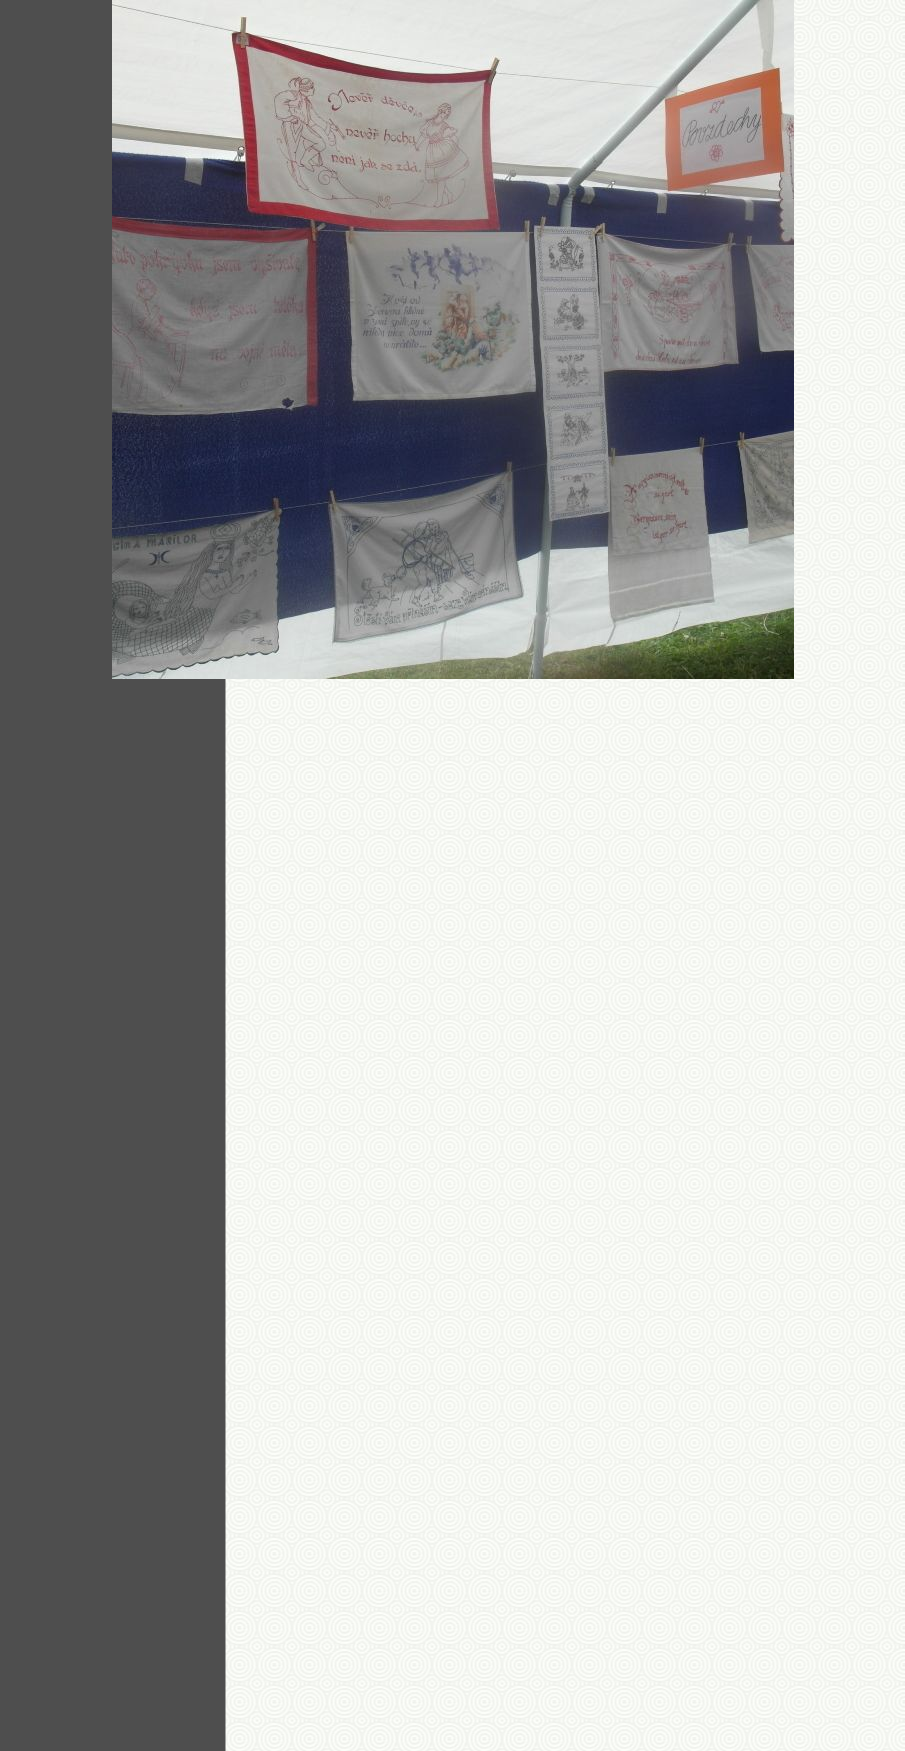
#include <cairo.h>
#include <math.h>
#include <stddef.h>


static void picture(cairo_t *cr, const char *path, double x, double y, double w, double h) {
    cairo_surface_t *image = cairo_image_surface_create_from_png(path);
    cairo_save(cr);
    cairo_set_source_surface(cr, image, x, y);
    cairo_rectangle(cr, x, y, w, h);
    cairo_fill(cr);
    cairo_restore(cr);
    cairo_surface_destroy(image);
}

int main(void) {
    cairo_surface_t *surface = cairo_image_surface_create(CAIRO_FORMAT_RGB24, 905, 1751);
    cairo_t *cr = cairo_create(surface);
    cairo_font_options_t *options = cairo_font_options_create();
    cairo_font_options_set_hint_metrics(options, CAIRO_HINT_METRICS_OFF);
    cairo_font_options_set_hint_style(options, CAIRO_HINT_STYLE_NONE);
    cairo_set_font_options(cr, options);
    cairo_set_miter_limit(cr, 4);
    cairo_set_source_rgb(cr, 0.306, 0.306, 0.306);
    cairo_paint(cr);
    picture(cr, "img1.png", 225, 0, 680, 1751);
    picture(cr, "img2.png", 112, 0, 682, 679);
    cairo_surface_write_to_png(surface, "page.png");
    cairo_font_options_destroy(options);
    cairo_destroy(cr);
    cairo_surface_destroy(surface);
    return 0;
}
